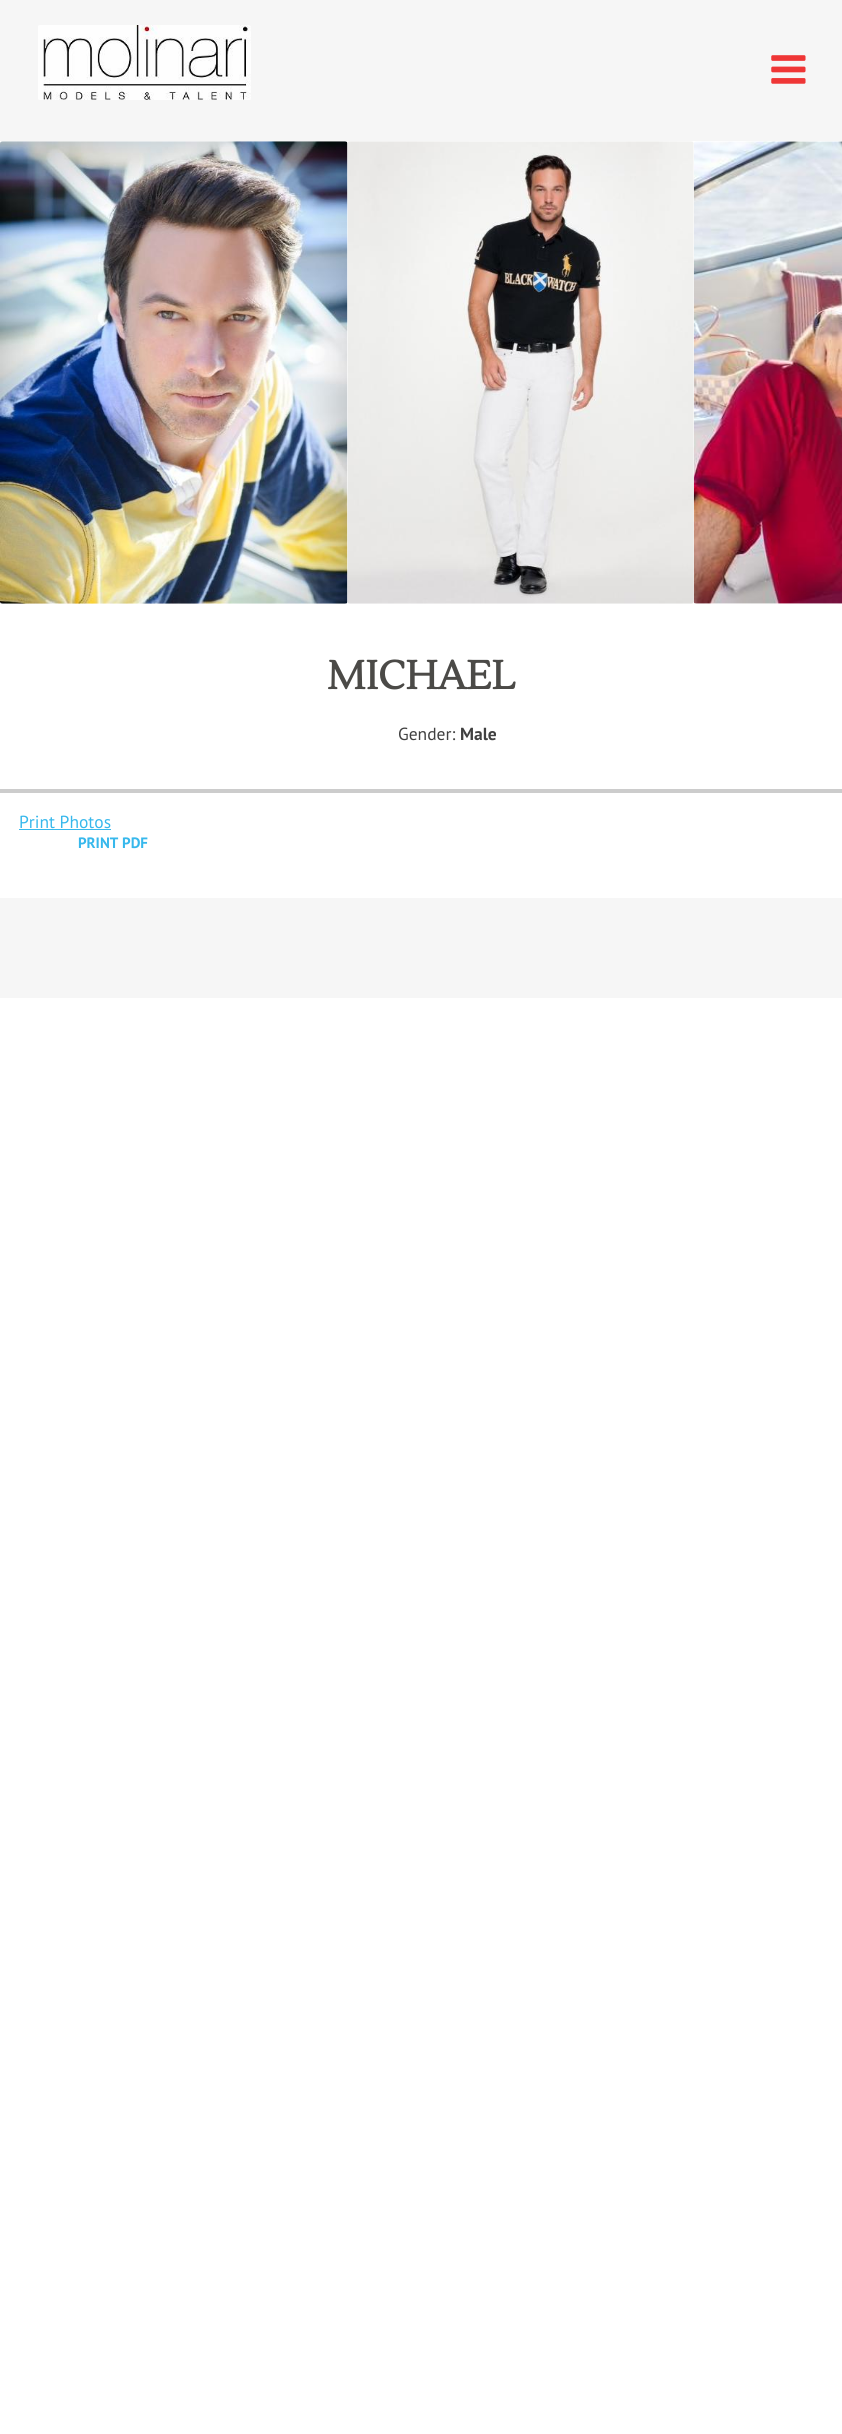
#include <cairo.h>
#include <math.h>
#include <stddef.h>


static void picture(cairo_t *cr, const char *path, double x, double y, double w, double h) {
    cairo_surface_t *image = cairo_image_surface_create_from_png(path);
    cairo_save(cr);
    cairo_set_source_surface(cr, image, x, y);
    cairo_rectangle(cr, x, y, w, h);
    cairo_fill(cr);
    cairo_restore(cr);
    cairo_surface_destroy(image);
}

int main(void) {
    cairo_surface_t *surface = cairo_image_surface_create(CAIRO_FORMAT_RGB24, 842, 2434);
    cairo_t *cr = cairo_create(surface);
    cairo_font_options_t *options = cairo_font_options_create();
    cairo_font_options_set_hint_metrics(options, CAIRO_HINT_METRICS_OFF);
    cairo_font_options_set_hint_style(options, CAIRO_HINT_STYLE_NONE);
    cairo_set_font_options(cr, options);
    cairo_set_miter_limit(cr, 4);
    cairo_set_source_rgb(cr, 1, 1, 1);
    cairo_paint(cr);
    cairo_set_source_rgb(cr, 0.961, 0.961, 0.961);
    cairo_rectangle(cr, 0, 0, 842, 141);
    cairo_fill(cr);
    picture(cr, "img1.png", 38, 25, 213, 75);
    picture(cr, "img2.png", 771, 55, 35, 29);
    picture(cr, "img3.png", 0, 141, 348, 463);
    picture(cr, "img4.png", 347, 141, 347, 463);
    picture(cr, "img5.png", 693, 141, 149, 463);
    cairo_select_font_face(cr, "Lustria", CAIRO_FONT_SLANT_NORMAL, CAIRO_FONT_WEIGHT_BOLD);
    cairo_set_font_size(cr, 40);
    cairo_set_source_rgb(cr, 0.294, 0.29, 0.278);
    cairo_move_to(cr, 327, 689);
    cairo_show_text(cr, "MICHAEL");
    cairo_select_font_face(cr, "PT Sans", CAIRO_FONT_SLANT_NORMAL, CAIRO_FONT_WEIGHT_NORMAL);
    cairo_set_font_size(cr, 17.5);
    cairo_set_source_rgb(cr, 0.251, 0.251, 0.251);
    cairo_move_to(cr, 398, 740);
    cairo_show_text(cr, "Gender:");
    cairo_select_font_face(cr, "PT Sans", CAIRO_FONT_SLANT_NORMAL, CAIRO_FONT_WEIGHT_BOLD);
    cairo_move_to(cr, 460, 740);
    cairo_show_text(cr, "Male");
    cairo_set_source_rgb(cr, 0.8, 0.8, 0.8);
    cairo_rectangle(cr, 0, 789, 842, 4);
    cairo_fill(cr);
    cairo_select_font_face(cr, "PT Sans", CAIRO_FONT_SLANT_NORMAL, CAIRO_FONT_WEIGHT_NORMAL);
    cairo_set_source_rgb(cr, 0.216, 0.722, 0.922);
    cairo_move_to(cr, 19, 828);
    cairo_show_text(cr, "Print Photos");
    cairo_rectangle(cr, 19, 829, 92, 1);
    cairo_fill(cr);
    cairo_select_font_face(cr, "PT Sans", CAIRO_FONT_SLANT_NORMAL, CAIRO_FONT_WEIGHT_BOLD);
    cairo_set_font_size(cr, 15);
    cairo_move_to(cr, 78, 848);
    cairo_show_text(cr, "PRINT PDF");
    cairo_set_source_rgb(cr, 0.961, 0.961, 0.961);
    cairo_rectangle(cr, 0, 898, 842, 100);
    cairo_fill(cr);
    cairo_surface_write_to_png(surface, "page.png");
    cairo_font_options_destroy(options);
    cairo_destroy(cr);
    cairo_surface_destroy(surface);
    return 0;
}
